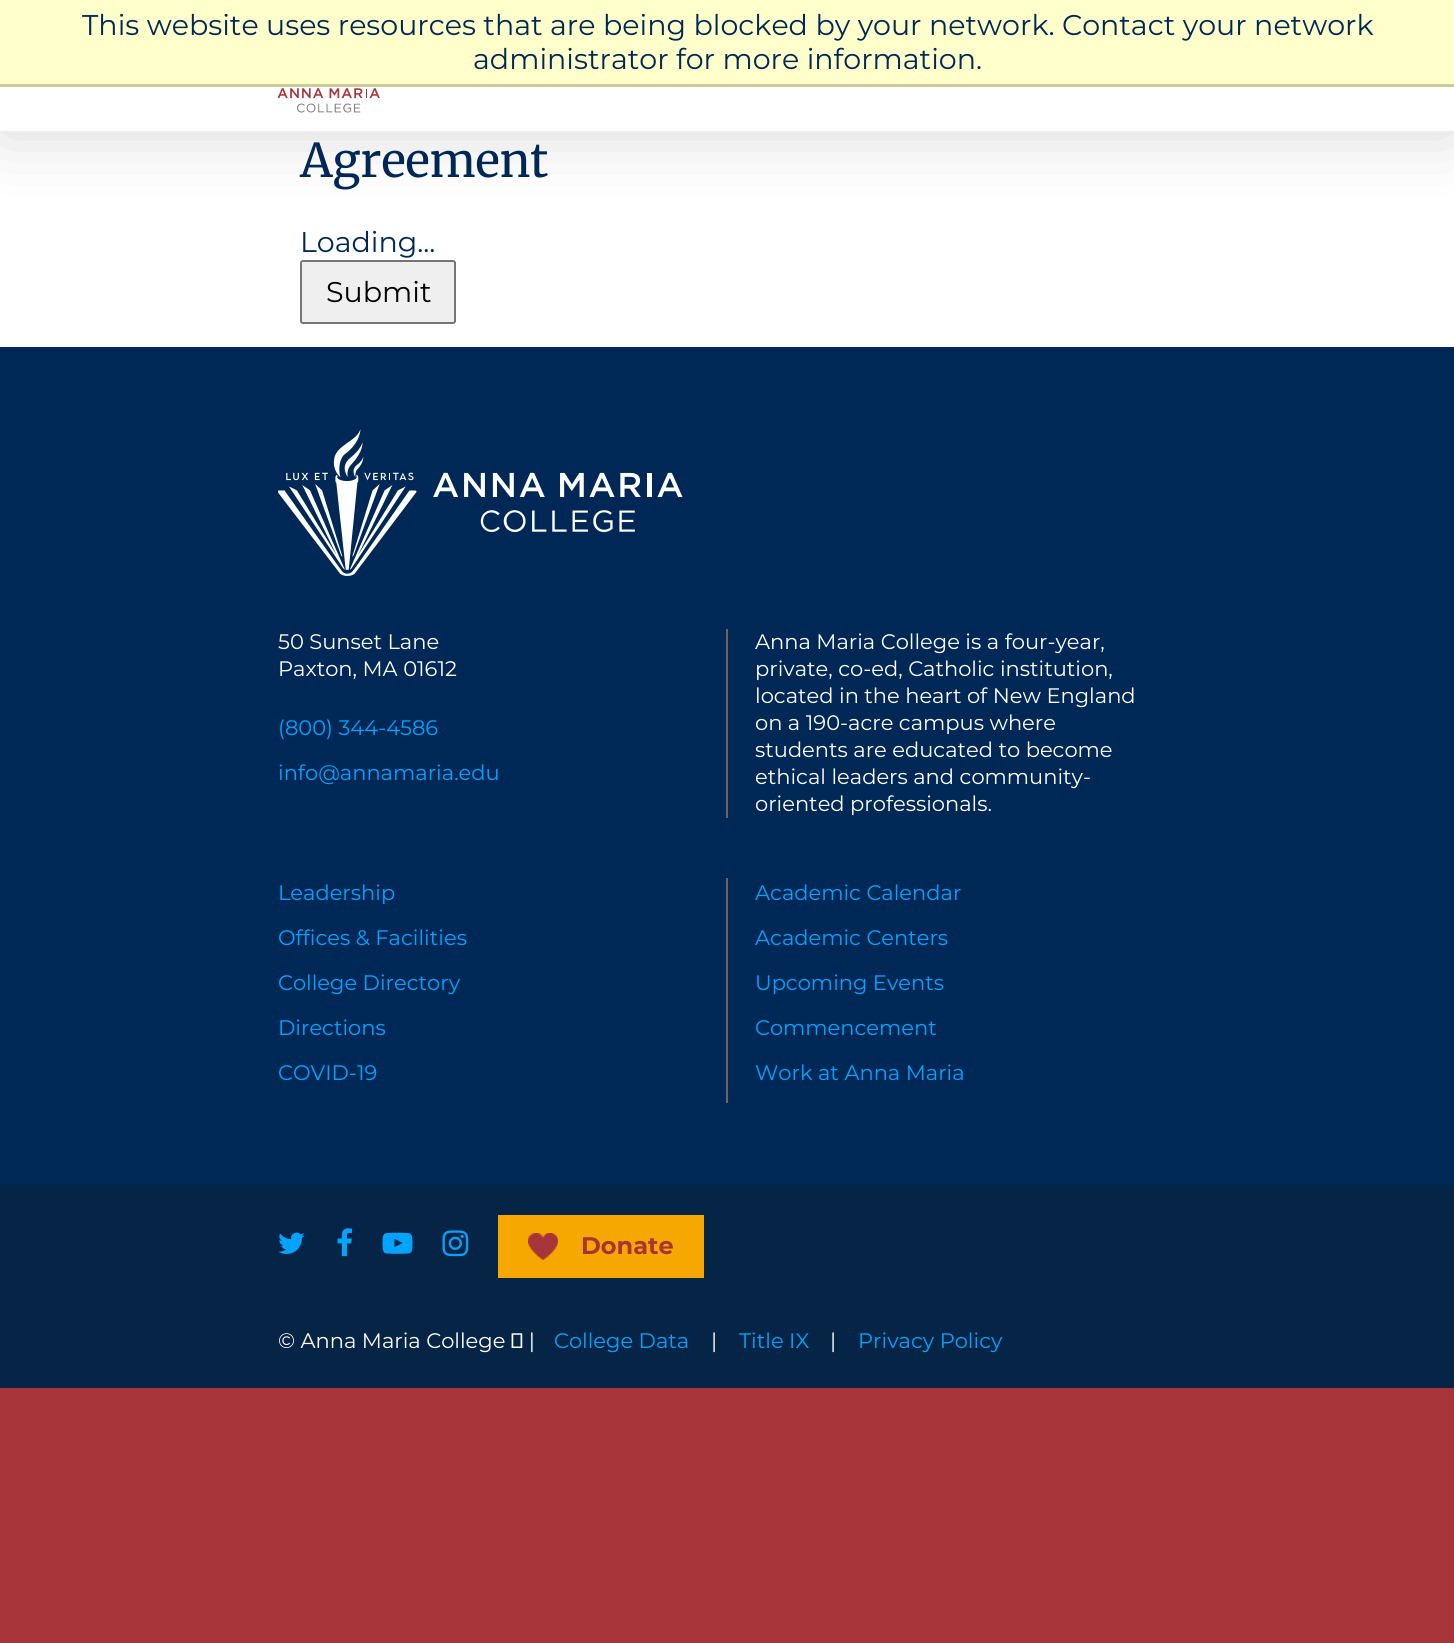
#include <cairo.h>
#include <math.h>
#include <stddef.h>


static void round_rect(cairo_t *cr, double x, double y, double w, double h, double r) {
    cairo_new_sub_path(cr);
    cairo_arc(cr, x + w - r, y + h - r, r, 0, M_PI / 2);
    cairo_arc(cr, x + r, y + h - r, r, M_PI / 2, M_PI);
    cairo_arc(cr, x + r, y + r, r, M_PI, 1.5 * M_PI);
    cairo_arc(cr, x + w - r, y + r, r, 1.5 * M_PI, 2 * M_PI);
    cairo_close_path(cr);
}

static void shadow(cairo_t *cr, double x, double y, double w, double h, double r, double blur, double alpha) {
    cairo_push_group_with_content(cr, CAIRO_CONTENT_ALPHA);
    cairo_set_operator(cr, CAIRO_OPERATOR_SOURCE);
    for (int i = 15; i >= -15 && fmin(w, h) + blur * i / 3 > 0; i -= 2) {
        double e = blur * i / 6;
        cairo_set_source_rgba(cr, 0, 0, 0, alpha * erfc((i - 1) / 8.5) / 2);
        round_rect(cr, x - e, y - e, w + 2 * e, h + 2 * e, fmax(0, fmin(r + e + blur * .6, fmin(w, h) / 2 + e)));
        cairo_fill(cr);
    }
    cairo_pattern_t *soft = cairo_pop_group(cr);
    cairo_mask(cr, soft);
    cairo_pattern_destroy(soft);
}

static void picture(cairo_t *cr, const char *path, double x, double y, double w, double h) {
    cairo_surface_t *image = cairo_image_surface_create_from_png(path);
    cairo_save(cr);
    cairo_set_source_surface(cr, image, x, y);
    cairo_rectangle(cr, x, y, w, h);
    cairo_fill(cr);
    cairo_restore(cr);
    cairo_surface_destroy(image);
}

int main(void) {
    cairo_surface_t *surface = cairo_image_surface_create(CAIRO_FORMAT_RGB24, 1454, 1643);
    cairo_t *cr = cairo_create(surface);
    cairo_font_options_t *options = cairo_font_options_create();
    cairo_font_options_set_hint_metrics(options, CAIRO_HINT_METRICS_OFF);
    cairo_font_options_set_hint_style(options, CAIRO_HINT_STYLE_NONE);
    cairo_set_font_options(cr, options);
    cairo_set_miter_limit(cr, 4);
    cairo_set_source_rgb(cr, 0.655, 0.204, 0.224);
    cairo_paint(cr);
    cairo_set_source_rgb(cr, 1, 1, 1);
    cairo_rectangle(cr, 0, 131, 1454, 216);
    cairo_fill(cr);
    cairo_set_source_rgb(cr, 0, 0, 0);
    shadow(cr, 0, 5, 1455, 130, 0, 34, 0.15);
    cairo_set_source_rgb(cr, 1, 1, 0.8);
    cairo_rectangle(cr, 0, 0, 1454, 84);
    cairo_fill(cr);
    cairo_set_source_rgb(cr, 0.8, 0.8, 0.6);
    cairo_rectangle(cr, 0, 84, 1454, 3);
    cairo_fill(cr);
    cairo_select_font_face(cr, "Montserrat", CAIRO_FONT_SLANT_NORMAL, CAIRO_FONT_WEIGHT_NORMAL);
    cairo_set_font_size(cr, 28.5);
    cairo_set_source_rgb(cr, 0, 0.157, 0.337);
    cairo_move_to(cr, 82, 35);
    cairo_show_text(cr, "This website uses resources that are being blocked by your network. Contact your network");
    cairo_move_to(cr, 473, 69);
    cairo_show_text(cr, "administrator for more information.");
    cairo_set_source_rgb(cr, 1, 1, 1);
    cairo_rectangle(cr, 0, 87, 1454, 44);
    cairo_fill(cr);
    picture(cr, "img1.png", 278, 88, 102, 25);
    cairo_select_font_face(cr, "Merriweather", CAIRO_FONT_SLANT_NORMAL, CAIRO_FONT_WEIGHT_NORMAL);
    cairo_set_font_size(cr, 46.25);
    cairo_set_source_rgb(cr, 0, 0.157, 0.337);
    cairo_move_to(cr, 300, 177);
    cairo_show_text(cr, "Agreement");
    cairo_select_font_face(cr, "Montserrat", CAIRO_FONT_SLANT_NORMAL, CAIRO_FONT_WEIGHT_NORMAL);
    cairo_set_font_size(cr, 28.5);
    cairo_move_to(cr, 300, 252);
    cairo_show_text(cr, "Loading...");
    cairo_set_source_rgb(cr, 0.937, 0.937, 0.937);
    round_rect(cr, 301, 261, 154, 62, 2);
    cairo_fill_preserve(cr);
    cairo_set_source_rgb(cr, 0.463, 0.463, 0.463);
    cairo_stroke(cr);
    cairo_set_source_rgb(cr, 0, 0, 0);
    cairo_move_to(cr, 326, 302);
    cairo_show_text(cr, "Submit");
    cairo_set_source_rgb(cr, 0, 0.157, 0.337);
    cairo_rectangle(cr, 0, 347, 1454, 838);
    cairo_fill(cr);
    picture(cr, "img2.png", 278, 429, 405, 147);
    cairo_set_source_rgb(cr, 0.4, 0.4, 0.4);
    cairo_rectangle(cr, 726, 629, 2, 189);
    cairo_fill(cr);
    cairo_set_font_size(cr, 21);
    cairo_set_source_rgb(cr, 1, 1, 1);
    cairo_move_to(cr, 278, 649);
    cairo_show_text(cr, "50 Sunset Lane");
    cairo_move_to(cr, 278, 676);
    cairo_show_text(cr, "Paxton, MA 01612");
    cairo_set_source_rgb(cr, 0, 0.643, 1);
    cairo_move_to(cr, 278, 735);
    cairo_show_text(cr, "(800) 344-4586");
    cairo_move_to(cr, 278, 780);
    cairo_show_text(cr, "info@annamaria.edu");
    cairo_set_source_rgb(cr, 1, 1, 1);
    cairo_move_to(cr, 755, 649);
    cairo_show_text(cr, "Anna Maria College is a four-year,");
    cairo_move_to(cr, 755, 676);
    cairo_show_text(cr, "private, co-ed, Catholic institution,");
    cairo_move_to(cr, 755, 703);
    cairo_show_text(cr, "located in the heart of New England");
    cairo_move_to(cr, 755, 730);
    cairo_show_text(cr, "on a 190-acre campus where");
    cairo_move_to(cr, 755, 757);
    cairo_show_text(cr, "students are educated to become");
    cairo_move_to(cr, 755, 784);
    cairo_show_text(cr, "ethical leaders and community-");
    cairo_move_to(cr, 755, 811);
    cairo_show_text(cr, "oriented professionals.");
    cairo_set_source_rgb(cr, 0.4, 0.4, 0.4);
    cairo_rectangle(cr, 726, 878, 2, 225);
    cairo_fill(cr);
    cairo_set_source_rgb(cr, 0, 0.643, 1);
    cairo_move_to(cr, 278, 900);
    cairo_show_text(cr, "Leadership");
    cairo_move_to(cr, 278, 945);
    cairo_show_text(cr, "Offices & Facilities");
    cairo_move_to(cr, 278, 990);
    cairo_show_text(cr, "College Directory");
    cairo_move_to(cr, 278, 1035);
    cairo_show_text(cr, "Directions");
    cairo_move_to(cr, 278, 1080);
    cairo_show_text(cr, "COVID-19");
    cairo_move_to(cr, 755, 900);
    cairo_show_text(cr, "Academic Calendar");
    cairo_move_to(cr, 755, 945);
    cairo_show_text(cr, "Academic Centers");
    cairo_move_to(cr, 755, 990);
    cairo_show_text(cr, "Upcoming Events");
    cairo_move_to(cr, 755, 1035);
    cairo_show_text(cr, "Commencement");
    cairo_move_to(cr, 755, 1080);
    cairo_show_text(cr, "Work at Anna Maria");
    cairo_set_source_rgb(cr, 0.024, 0.141, 0.275);
    cairo_rectangle(cr, 0, 1185, 1454, 203);
    cairo_fill(cr);
    picture(cr, "img3.png", 278, 1232, 27, 22);
    picture(cr, "img4.png", 337, 1228, 16, 29);
    picture(cr, "img5.png", 382, 1232, 31, 22);
    picture(cr, "img6.png", 442, 1230, 27, 27);
    cairo_set_source_rgb(cr, 0.961, 0.659, 0);
    cairo_rectangle(cr, 498, 1215, 206, 63);
    cairo_fill(cr);
    picture(cr, "img7.png", 528, 1233, 30, 27);
    cairo_select_font_face(cr, "Montserrat", CAIRO_FONT_SLANT_NORMAL, CAIRO_FONT_WEIGHT_BOLD);
    cairo_set_font_size(cr, 24);
    cairo_set_source_rgb(cr, 0.655, 0.204, 0.224);
    cairo_move_to(cr, 581, 1254);
    cairo_show_text(cr, "Donate");
    cairo_select_font_face(cr, "Montserrat", CAIRO_FONT_SLANT_NORMAL, CAIRO_FONT_WEIGHT_NORMAL);
    cairo_set_font_size(cr, 21);
    cairo_set_source_rgb(cr, 1, 1, 1);
    cairo_move_to(cr, 278, 1348);
    cairo_show_text(cr, "© Anna Maria College   |");
    cairo_set_source_rgb(cr, 0, 0.643, 1);
    cairo_move_to(cr, 554, 1348);
    cairo_show_text(cr, "College Data");
    cairo_set_source_rgb(cr, 1, 1, 1);
    cairo_move_to(cr, 711, 1348);
    cairo_show_text(cr, "|");
    cairo_set_source_rgb(cr, 0, 0.643, 1);
    cairo_move_to(cr, 739, 1348);
    cairo_show_text(cr, "Title IX");
    cairo_set_source_rgb(cr, 1, 1, 1);
    cairo_move_to(cr, 830, 1348);
    cairo_show_text(cr, "|");
    cairo_set_source_rgb(cr, 0, 0.643, 1);
    cairo_move_to(cr, 858, 1348);
    cairo_show_text(cr, "Privacy Policy");
    cairo_surface_write_to_png(surface, "page.png");
    cairo_font_options_destroy(options);
    cairo_destroy(cr);
    cairo_surface_destroy(surface);
    return 0;
}
